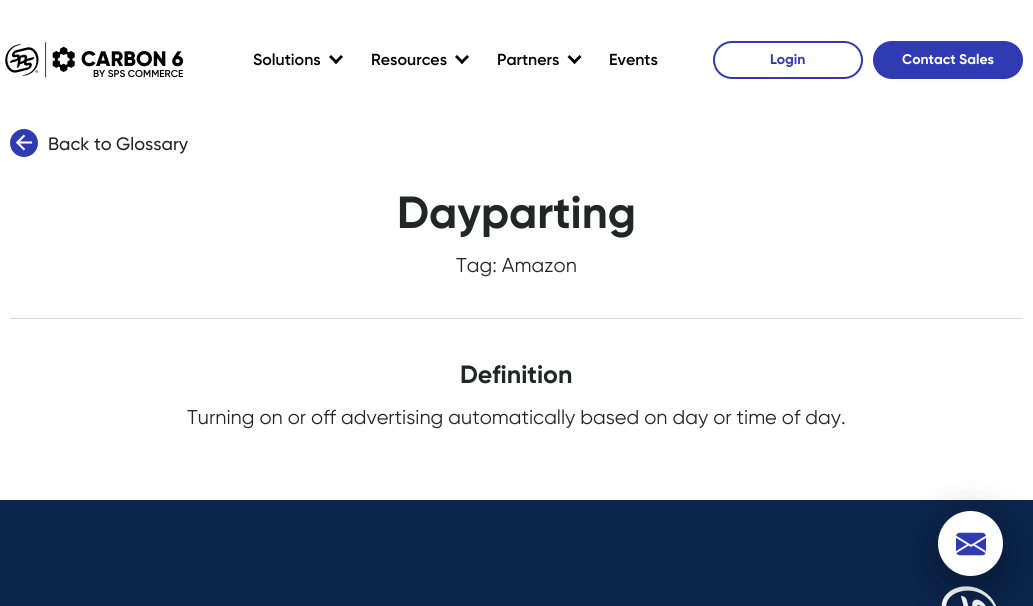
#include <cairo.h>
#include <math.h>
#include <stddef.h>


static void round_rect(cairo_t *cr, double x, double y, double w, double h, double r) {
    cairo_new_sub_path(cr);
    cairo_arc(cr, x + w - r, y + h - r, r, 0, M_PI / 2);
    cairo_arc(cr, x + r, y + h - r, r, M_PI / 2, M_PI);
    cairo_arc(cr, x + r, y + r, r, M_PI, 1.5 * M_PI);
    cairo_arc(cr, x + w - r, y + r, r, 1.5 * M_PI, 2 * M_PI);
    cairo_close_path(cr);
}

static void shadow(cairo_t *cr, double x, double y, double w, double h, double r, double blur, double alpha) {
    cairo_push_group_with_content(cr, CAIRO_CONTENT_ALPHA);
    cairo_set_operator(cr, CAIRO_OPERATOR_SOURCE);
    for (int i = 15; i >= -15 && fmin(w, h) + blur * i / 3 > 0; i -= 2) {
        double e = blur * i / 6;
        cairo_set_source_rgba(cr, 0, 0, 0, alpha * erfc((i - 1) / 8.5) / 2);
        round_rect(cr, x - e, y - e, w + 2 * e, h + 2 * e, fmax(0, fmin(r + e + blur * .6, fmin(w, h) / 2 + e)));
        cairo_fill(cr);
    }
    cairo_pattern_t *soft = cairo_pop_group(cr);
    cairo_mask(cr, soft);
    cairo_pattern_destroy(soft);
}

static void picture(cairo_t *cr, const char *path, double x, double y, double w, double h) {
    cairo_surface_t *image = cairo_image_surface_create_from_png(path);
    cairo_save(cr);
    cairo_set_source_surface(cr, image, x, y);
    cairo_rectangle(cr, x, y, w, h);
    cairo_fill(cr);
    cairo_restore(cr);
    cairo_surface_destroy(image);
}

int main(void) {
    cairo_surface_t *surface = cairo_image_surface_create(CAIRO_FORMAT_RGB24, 1033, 606);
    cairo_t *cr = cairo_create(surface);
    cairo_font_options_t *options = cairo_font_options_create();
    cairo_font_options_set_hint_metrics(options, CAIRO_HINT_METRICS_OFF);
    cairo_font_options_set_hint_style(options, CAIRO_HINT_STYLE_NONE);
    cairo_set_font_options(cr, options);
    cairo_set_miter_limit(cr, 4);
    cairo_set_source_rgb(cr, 1, 1, 1);
    cairo_paint(cr);
    picture(cr, "img1.png", 5, 42, 70, 36);
    cairo_select_font_face(cr, "Gilroy ExtraBold", CAIRO_FONT_SLANT_NORMAL, CAIRO_FONT_WEIGHT_NORMAL);
    cairo_set_font_size(cr, 21);
    cairo_set_source_rgb(cr, 0, 0, 0);
    cairo_move_to(cr, 81, 66);
    cairo_show_text(cr, "CARBON 6");
    cairo_select_font_face(cr, "Gilroy SemiBold", CAIRO_FONT_SLANT_NORMAL, CAIRO_FONT_WEIGHT_NORMAL);
    cairo_set_font_size(cr, 10);
    cairo_move_to(cr, 93, 77);
    cairo_show_text(cr, "BY SPS COMMERCE");
    cairo_set_font_size(cr, 16);
    cairo_move_to(cr, 253, 65);
    cairo_show_text(cr, "Solutions");
    cairo_new_path(cr);
    cairo_move_to(cr, 343, 57);
    cairo_line_to(cr, 336, 64);
    cairo_line_to(cr, 334, 62);
    cairo_line_to(cr, 341, 55);
    cairo_close_path(cr);
    cairo_fill(cr);
    cairo_new_path(cr);
    cairo_move_to(cr, 338, 62);
    cairo_line_to(cr, 336, 64);
    cairo_line_to(cr, 329, 57);
    cairo_line_to(cr, 331, 55);
    cairo_close_path(cr);
    cairo_fill(cr);
    cairo_move_to(cr, 371, 65);
    cairo_show_text(cr, "Resources");
    cairo_new_path(cr);
    cairo_move_to(cr, 469, 57);
    cairo_line_to(cr, 462, 64);
    cairo_line_to(cr, 460, 62);
    cairo_line_to(cr, 467, 55);
    cairo_close_path(cr);
    cairo_fill(cr);
    cairo_new_path(cr);
    cairo_move_to(cr, 464, 62);
    cairo_line_to(cr, 462, 64);
    cairo_line_to(cr, 455, 57);
    cairo_line_to(cr, 457, 55);
    cairo_close_path(cr);
    cairo_fill(cr);
    cairo_move_to(cr, 497, 65);
    cairo_show_text(cr, "Partners");
    cairo_new_path(cr);
    cairo_move_to(cr, 581.5, 57);
    cairo_line_to(cr, 574.5, 64);
    cairo_line_to(cr, 572.5, 62);
    cairo_line_to(cr, 579.5, 55);
    cairo_close_path(cr);
    cairo_fill(cr);
    cairo_new_path(cr);
    cairo_move_to(cr, 576.5, 62);
    cairo_line_to(cr, 574.5, 64);
    cairo_line_to(cr, 567.5, 57);
    cairo_line_to(cr, 569.5, 55);
    cairo_close_path(cr);
    cairo_fill(cr);
    cairo_move_to(cr, 609, 65);
    cairo_show_text(cr, "Events");
    round_rect(cr, 714, 42, 148, 36, 18);
    cairo_set_source_rgb(cr, 0.188, 0.227, 0.698);
    cairo_stroke(cr);
    cairo_select_font_face(cr, "Gilroy", CAIRO_FONT_SLANT_NORMAL, CAIRO_FONT_WEIGHT_BOLD);
    cairo_set_font_size(cr, 14);
    cairo_move_to(cr, 770, 64);
    cairo_show_text(cr, "Login");
    round_rect(cr, 874, 42, 148, 36, 18);
    cairo_fill_preserve(cr);
    cairo_stroke(cr);
    cairo_set_source_rgb(cr, 1, 1, 1);
    cairo_move_to(cr, 902, 64);
    cairo_show_text(cr, "Contact Sales");
    picture(cr, "img2.png", 10, 129, 28, 28);
    cairo_select_font_face(cr, "Gilroy Medium", CAIRO_FONT_SLANT_NORMAL, CAIRO_FONT_WEIGHT_NORMAL);
    cairo_set_font_size(cr, 18);
    cairo_set_source_rgb(cr, 0.141, 0.149, 0.149);
    cairo_move_to(cr, 48, 150);
    cairo_show_text(cr, "Back to Glossary");
    cairo_set_source_rgb(cr, 0.851, 0.851, 0.851);
    cairo_rectangle(cr, 10, 318, 1013, 1);
    cairo_fill(cr);
    cairo_select_font_face(cr, "Gilroy", CAIRO_FONT_SLANT_NORMAL, CAIRO_FONT_WEIGHT_BOLD);
    cairo_set_font_size(cr, 45);
    cairo_set_source_rgb(cr, 0.141, 0.149, 0.149);
    cairo_move_to(cr, 397, 228);
    cairo_show_text(cr, "Dayparting");
    cairo_select_font_face(cr, "Gilroy", CAIRO_FONT_SLANT_NORMAL, CAIRO_FONT_WEIGHT_NORMAL);
    cairo_set_font_size(cr, 20);
    cairo_move_to(cr, 456, 272);
    cairo_show_text(cr, "Tag: Amazon");
    cairo_select_font_face(cr, "Gilroy", CAIRO_FONT_SLANT_NORMAL, CAIRO_FONT_WEIGHT_BOLD);
    cairo_set_font_size(cr, 25);
    cairo_move_to(cr, 460, 383);
    cairo_show_text(cr, "Definition");
    cairo_select_font_face(cr, "Gilroy", CAIRO_FONT_SLANT_NORMAL, CAIRO_FONT_WEIGHT_NORMAL);
    cairo_set_font_size(cr, 20);
    cairo_move_to(cr, 187, 424);
    cairo_show_text(cr, "Turning on or off advertising automatically based on day or time of day.");
    cairo_set_source_rgb(cr, 0.043, 0.145, 0.294);
    cairo_rectangle(cr, 0, 500, 1033, 106);
    cairo_fill(cr);
    picture(cr, "img4.png", 941, 586, 55, 20);
    cairo_set_source_rgb(cr, 0, 0, 0);
    shadow(cr, 938, 523, 65, 65, 32.5, 22.5, 0.3);
    cairo_set_source_rgb(cr, 1, 1, 1);
    cairo_arc(cr, 970.5, 543.5, 32.5, 0, 2 * M_PI);
    cairo_fill(cr);
    picture(cr, "img3.png", 956, 532, 30, 24);
    cairo_surface_write_to_png(surface, "page.png");
    cairo_font_options_destroy(options);
    cairo_destroy(cr);
    cairo_surface_destroy(surface);
    return 0;
}
